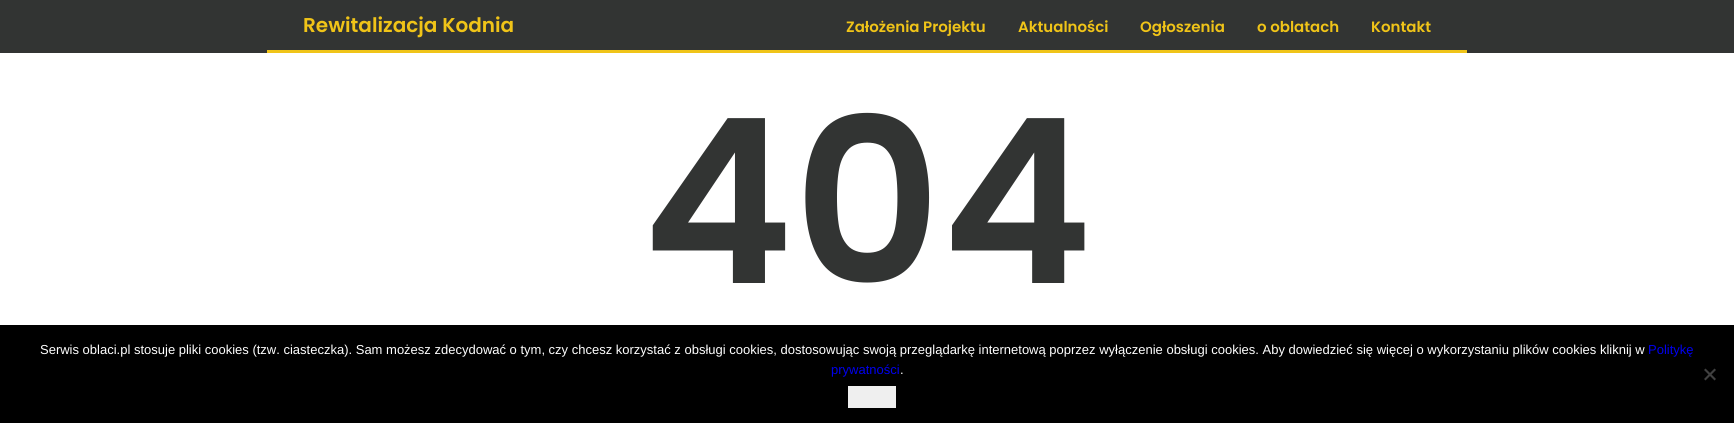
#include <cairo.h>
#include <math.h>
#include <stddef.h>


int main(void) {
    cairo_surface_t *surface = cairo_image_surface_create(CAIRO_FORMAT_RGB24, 1734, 423);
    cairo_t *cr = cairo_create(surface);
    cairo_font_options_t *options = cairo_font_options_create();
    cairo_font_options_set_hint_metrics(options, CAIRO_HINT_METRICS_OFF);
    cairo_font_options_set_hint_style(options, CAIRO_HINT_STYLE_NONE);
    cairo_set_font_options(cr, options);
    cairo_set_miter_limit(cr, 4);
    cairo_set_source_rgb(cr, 1, 1, 1);
    cairo_paint(cr);
    cairo_set_source_rgb(cr, 0.196, 0.204, 0.2);
    cairo_rectangle(cr, 0, 0, 1734, 53);
    cairo_fill(cr);
    cairo_set_source_rgb(cr, 0.941, 0.769, 0.094);
    cairo_rectangle(cr, 267, 50, 1200, 3);
    cairo_fill(cr);
    cairo_select_font_face(cr, "Poppins SemiBold", CAIRO_FONT_SLANT_NORMAL, CAIRO_FONT_WEIGHT_NORMAL);
    cairo_set_font_size(cr, 20);
    cairo_move_to(cr, 303, 32);
    cairo_show_text(cr, "Rewitalizacja Kodnia");
    cairo_set_font_size(cr, 15);
    cairo_move_to(cr, 846, 32);
    cairo_show_text(cr, "Założenia Projektu");
    cairo_move_to(cr, 1018, 32);
    cairo_show_text(cr, "Aktualności");
    cairo_move_to(cr, 1140, 32);
    cairo_show_text(cr, "Ogłoszenia");
    cairo_move_to(cr, 1257, 32);
    cairo_show_text(cr, "o oblatach");
    cairo_move_to(cr, 1371, 32);
    cairo_show_text(cr, "Kontakt");
    cairo_set_font_size(cr, 229);
    cairo_set_source_rgb(cr, 0.196, 0.204, 0.2);
    cairo_move_to(cr, 642, 283);
    cairo_show_text(cr, "404");
    cairo_set_source_rgb(cr, 0, 0, 0);
    cairo_rectangle(cr, 0, 325, 1734, 98);
    cairo_fill(cr);
    cairo_select_font_face(cr, "Liberation Sans", CAIRO_FONT_SLANT_NORMAL, CAIRO_FONT_WEIGHT_NORMAL);
    cairo_set_font_size(cr, 13);
    cairo_set_source_rgb(cr, 1, 1, 1);
    cairo_move_to(cr, 40, 354);
    cairo_show_text(cr, "Serwis oblaci.pl stosuje pliki cookies (tzw. ciasteczka). Sam możesz zdecydować o tym, czy chcesz korzystać z obsługi cookies, dostosowując swoją przeglądarkę internetową poprzez wyłączenie obsługi cookies. Aby dowiedzieć się więcej o wykorzystaniu plików cookies kliknij w");
    cairo_set_source_rgb(cr, 0, 0, 0.933);
    cairo_move_to(cr, 1648, 354);
    cairo_show_text(cr, "Politykę");
    cairo_move_to(cr, 831, 374);
    cairo_show_text(cr, "prywatności");
    cairo_set_source_rgb(cr, 1, 1, 1);
    cairo_move_to(cr, 900, 374);
    cairo_show_text(cr, ".");
    cairo_set_source_rgb(cr, 0.251, 0.251, 0.251);
    cairo_new_path(cr);
    cairo_move_to(cr, 1714.5, 368.5);
    cairo_line_to(cr, 1716, 370);
    cairo_line_to(cr, 1705.5, 380.5);
    cairo_line_to(cr, 1704, 379);
    cairo_close_path(cr);
    cairo_fill(cr);
    cairo_new_path(cr);
    cairo_move_to(cr, 1704, 370);
    cairo_line_to(cr, 1705.5, 368.5);
    cairo_line_to(cr, 1716, 379);
    cairo_line_to(cr, 1714.5, 380.5);
    cairo_close_path(cr);
    cairo_fill(cr);
    cairo_set_source_rgb(cr, 0.937, 0.937, 0.937);
    cairo_rectangle(cr, 848, 386, 48, 22);
    cairo_fill(cr);
    cairo_surface_write_to_png(surface, "page.png");
    cairo_font_options_destroy(options);
    cairo_destroy(cr);
    cairo_surface_destroy(surface);
    return 0;
}
